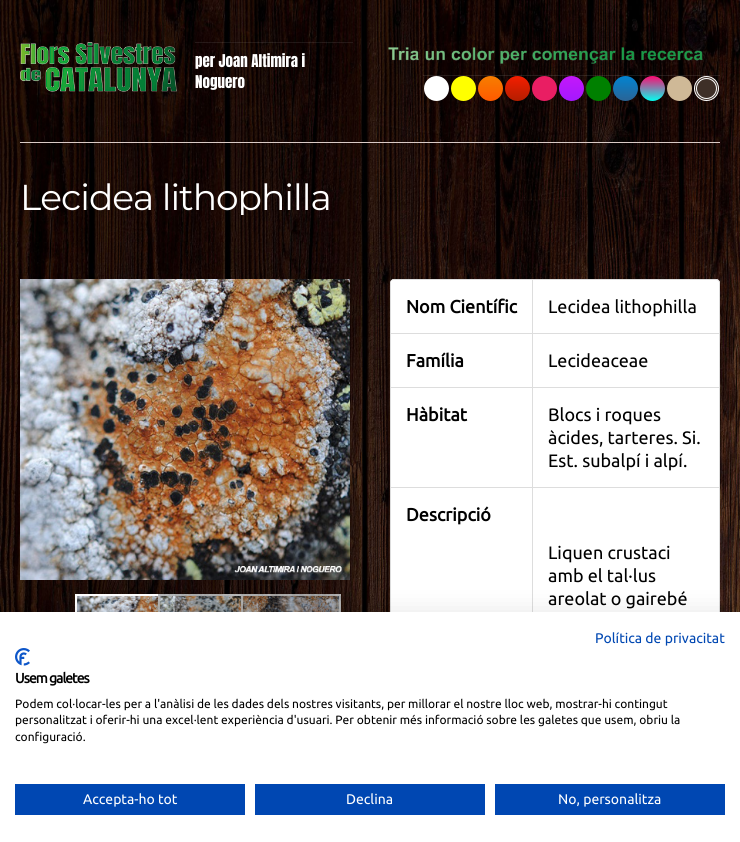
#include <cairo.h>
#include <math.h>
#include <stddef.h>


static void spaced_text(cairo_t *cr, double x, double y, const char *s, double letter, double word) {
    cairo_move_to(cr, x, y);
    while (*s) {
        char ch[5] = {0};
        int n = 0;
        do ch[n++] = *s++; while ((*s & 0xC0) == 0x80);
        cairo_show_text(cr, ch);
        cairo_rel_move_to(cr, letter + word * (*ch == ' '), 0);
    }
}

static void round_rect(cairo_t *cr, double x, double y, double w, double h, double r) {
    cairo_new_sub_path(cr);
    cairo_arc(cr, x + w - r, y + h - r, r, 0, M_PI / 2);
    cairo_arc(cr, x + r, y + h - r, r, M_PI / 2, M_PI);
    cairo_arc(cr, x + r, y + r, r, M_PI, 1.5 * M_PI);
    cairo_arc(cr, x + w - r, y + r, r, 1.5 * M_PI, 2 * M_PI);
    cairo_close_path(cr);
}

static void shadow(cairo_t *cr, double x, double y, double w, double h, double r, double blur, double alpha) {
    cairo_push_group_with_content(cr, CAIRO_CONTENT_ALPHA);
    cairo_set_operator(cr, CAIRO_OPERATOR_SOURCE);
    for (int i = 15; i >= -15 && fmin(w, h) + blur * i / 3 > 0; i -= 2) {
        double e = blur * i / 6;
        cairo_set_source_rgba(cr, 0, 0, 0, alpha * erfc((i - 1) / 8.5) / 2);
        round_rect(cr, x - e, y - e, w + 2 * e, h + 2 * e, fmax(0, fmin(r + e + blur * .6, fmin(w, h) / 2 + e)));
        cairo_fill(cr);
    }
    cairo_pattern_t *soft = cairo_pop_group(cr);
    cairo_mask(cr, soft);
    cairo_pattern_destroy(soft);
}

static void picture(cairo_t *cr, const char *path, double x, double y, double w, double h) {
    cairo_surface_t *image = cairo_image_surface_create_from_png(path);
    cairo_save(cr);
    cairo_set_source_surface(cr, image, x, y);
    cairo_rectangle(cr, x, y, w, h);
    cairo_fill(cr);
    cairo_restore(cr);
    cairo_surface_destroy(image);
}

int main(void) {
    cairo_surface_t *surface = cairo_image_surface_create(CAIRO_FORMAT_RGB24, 740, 842);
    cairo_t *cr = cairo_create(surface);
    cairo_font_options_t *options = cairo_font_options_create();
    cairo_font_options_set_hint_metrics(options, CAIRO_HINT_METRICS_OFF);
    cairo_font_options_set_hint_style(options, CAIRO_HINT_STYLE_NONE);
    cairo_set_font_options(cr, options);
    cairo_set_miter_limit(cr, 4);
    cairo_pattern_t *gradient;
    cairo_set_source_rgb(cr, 1, 1, 1);
    cairo_paint(cr);
    picture(cr, "img1.png", 0, 0, 740, 612);
    cairo_set_source_rgb(cr, 0.851, 0.792, 0.776);
    cairo_rectangle(cr, 20, 142, 700, 1);
    cairo_fill(cr);
    picture(cr, "img2.png", 20, 42, 157, 50);
    cairo_set_source_rgba(cr, 0.847, 0.847, 0.847, 0.1);
    cairo_rectangle(cr, 195, 42, 158, 1);
    cairo_fill(cr);
    cairo_select_font_face(cr, "Anton", CAIRO_FONT_SLANT_NORMAL, CAIRO_FONT_WEIGHT_NORMAL);
    cairo_set_font_size(cr, 15);
    cairo_set_source_rgb(cr, 1, 1, 1);
    cairo_move_to(cr, 195, 67);
    cairo_show_text(cr, "per Joan Altimira i");
    cairo_move_to(cr, 195, 88);
    cairo_show_text(cr, "Noguero");
    picture(cr, "img3.png", 388, 47, 315, 17);
    cairo_set_source_rgba(cr, 1, 1, 1, 0.1);
    cairo_rectangle(cr, 423, 75, 297, 1);
    cairo_fill(cr);
    cairo_set_source_rgb(cr, 1, 1, 1);
    cairo_arc(cr, 436.5, 88.5, 12.5, 0, 2 * M_PI);
    cairo_fill(cr);
    cairo_set_source_rgb(cr, 1, 1, 0);
    cairo_arc(cr, 463.5, 88.5, 12.5, 0, 2 * M_PI);
    cairo_fill(cr);
    gradient = cairo_pattern_create_linear(491, 76, 491, 101);
    cairo_pattern_add_color_stop_rgba(gradient, 0, 0.965, 0.494, 0, 1);
    cairo_pattern_add_color_stop_rgba(gradient, 1, 1, 0.353, 0, 1);
    cairo_set_source(cr, gradient);
    cairo_pattern_destroy(gradient);
    cairo_arc(cr, 490.5, 88.5, 12.5, 0, 2 * M_PI);
    cairo_fill(cr);
    gradient = cairo_pattern_create_linear(518, 76, 518, 101);
    cairo_pattern_add_color_stop_rgba(gradient, 0, 0.957, 0.118, 0, 1);
    cairo_pattern_add_color_stop_rgba(gradient, 1, 0.706, 0.118, 0, 1);
    cairo_set_source(cr, gradient);
    cairo_pattern_destroy(gradient);
    cairo_arc(cr, 517.5, 88.5, 12.5, 0, 2 * M_PI);
    cairo_fill(cr);
    cairo_set_source_rgb(cr, 0.914, 0.118, 0.388);
    cairo_arc(cr, 544.5, 88.5, 12.5, 0, 2 * M_PI);
    cairo_fill(cr);
    gradient = cairo_pattern_create_linear(572, 76, 572, 101);
    cairo_pattern_add_color_stop_rgba(gradient, 0, 0.769, 0.094, 0.98, 1);
    cairo_pattern_add_color_stop_rgba(gradient, 1, 0.643, 0.094, 1, 1);
    cairo_set_source(cr, gradient);
    cairo_pattern_destroy(gradient);
    cairo_arc(cr, 571.5, 88.5, 12.5, 0, 2 * M_PI);
    cairo_fill(cr);
    cairo_set_source_rgb(cr, 0, 0.502, 0);
    cairo_arc(cr, 598.5, 88.5, 12.5, 0, 2 * M_PI);
    cairo_fill(cr);
    gradient = cairo_pattern_create_linear(626, 76, 626, 101);
    cairo_pattern_add_color_stop_rgba(gradient, 0, 0.008, 0.518, 0.82, 1);
    cairo_pattern_add_color_stop_rgba(gradient, 1, 0.165, 0.392, 0.588, 1);
    cairo_set_source(cr, gradient);
    cairo_pattern_destroy(gradient);
    cairo_arc(cr, 625.5, 88.5, 12.5, 0, 2 * M_PI);
    cairo_fill(cr);
    gradient = cairo_pattern_create_linear(653, 76, 653, 101);
    cairo_pattern_add_color_stop_rgba(gradient, 0, 1, 0.039, 0.443, 1);
    cairo_pattern_add_color_stop_rgba(gradient, 1, 0.012, 1, 0.941, 1);
    cairo_set_source(cr, gradient);
    cairo_pattern_destroy(gradient);
    cairo_arc(cr, 652.5, 88.5, 12.5, 0, 2 * M_PI);
    cairo_fill(cr);
    cairo_set_source_rgb(cr, 0.812, 0.725, 0.592);
    cairo_arc(cr, 679.5, 88.5, 12.5, 0, 2 * M_PI);
    cairo_fill(cr);
    cairo_set_source_rgb(cr, 0.243, 0.184, 0.153);
    cairo_arc(cr, 706.5, 88.5, 12, 0, 2 * M_PI);
    cairo_fill_preserve(cr);
    cairo_set_source_rgb(cr, 1, 1, 1);
    cairo_set_line_width(cr, 1);
    cairo_stroke(cr);
    cairo_arc(cr, 706.5, 88.5, 10, 0, 2 * M_PI);
    cairo_stroke(cr);
    cairo_save(cr);
    cairo_rectangle(cr, 20, 179, 700, 36);
    cairo_clip(cr);
    cairo_select_font_face(cr, "Montserrat Thin", CAIRO_FONT_SLANT_NORMAL, CAIRO_FONT_WEIGHT_NORMAL);
    cairo_set_font_size(cr, 36);
    spaced_text(cr, 20, 210, "Lecidea lithophilla", -1, 0);
    cairo_restore(cr);
    picture(cr, "img4.png", 20, 279, 330, 301);
    picture(cr, "img5.png", 77, 596, 96, 16);
    cairo_rectangle(cr, 76, 595, 98, 98);
    cairo_set_line_width(cr, 2);
    cairo_stroke(cr);
    picture(cr, "img6.png", 158, 594, 100, 18);
    cairo_rectangle(cr, 159, 595, 98, 98);
    cairo_set_source_rgba(cr, 0.729, 0.729, 0.729, 0.8);
    cairo_stroke(cr);
    picture(cr, "img7.png", 241, 594, 100, 18);
    cairo_rectangle(cr, 242, 595, 98, 98);
    cairo_stroke(cr);
    cairo_set_source_rgb(cr, 1, 1, 1);
    round_rect(cr, 390, 279, 330, 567, 4);
    cairo_fill(cr);
    cairo_set_source_rgb(cr, 0.867, 0.867, 0.867);
    cairo_set_fill_rule(cr, CAIRO_FILL_RULE_EVEN_ODD);
    cairo_new_path(cr);
    cairo_move_to(cr, 394, 279);
    cairo_line_to(cr, 716, 279);
    cairo_curve_to(cr, 718, 279, 720, 281, 720, 283);
    cairo_line_to(cr, 720, 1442);
    cairo_curve_to(cr, 720, 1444, 718, 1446, 716, 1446);
    cairo_line_to(cr, 394, 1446);
    cairo_curve_to(cr, 392, 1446, 390, 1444, 390, 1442);
    cairo_line_to(cr, 390, 283);
    cairo_curve_to(cr, 390, 281, 392, 279, 394, 279);
    cairo_close_path(cr);
    cairo_move_to(cr, 394, 280);
    cairo_line_to(cr, 716, 280);
    cairo_curve_to(cr, 718, 280, 719, 281, 719, 283);
    cairo_line_to(cr, 719, 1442);
    cairo_curve_to(cr, 719, 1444, 718, 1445, 716, 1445);
    cairo_line_to(cr, 394, 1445);
    cairo_curve_to(cr, 392, 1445, 390, 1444, 390, 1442);
    cairo_line_to(cr, 390, 283);
    cairo_curve_to(cr, 390, 281, 392, 280, 394, 280);
    cairo_close_path(cr);
    cairo_fill(cr);
    cairo_rectangle(cr, 390, 282, 1, 51);
    cairo_fill(cr);
    cairo_select_font_face(cr, "Ubuntu", CAIRO_FONT_SLANT_NORMAL, CAIRO_FONT_WEIGHT_BOLD);
    cairo_set_font_size(cr, 18);
    cairo_set_source_rgb(cr, 0, 0, 0);
    cairo_move_to(cr, 406, 313);
    cairo_show_text(cr, "Nom Científic");
    cairo_set_source_rgb(cr, 0.867, 0.867, 0.867);
    cairo_rectangle(cr, 532, 280, 1, 53);
    cairo_fill(cr);
    cairo_select_font_face(cr, "Ubuntu", CAIRO_FONT_SLANT_NORMAL, CAIRO_FONT_WEIGHT_NORMAL);
    cairo_set_source_rgb(cr, 0, 0, 0);
    cairo_move_to(cr, 548, 313);
    cairo_show_text(cr, "Lecidea lithophilla");
    cairo_set_source_rgb(cr, 0.867, 0.867, 0.867);
    cairo_rectangle(cr, 390, 333, 329, 1);
    cairo_fill(cr);
    cairo_rectangle(cr, 390, 333, 1, 54);
    cairo_fill(cr);
    cairo_select_font_face(cr, "Ubuntu", CAIRO_FONT_SLANT_NORMAL, CAIRO_FONT_WEIGHT_BOLD);
    cairo_set_source_rgb(cr, 0, 0, 0);
    cairo_move_to(cr, 406, 367);
    cairo_show_text(cr, "Família");
    cairo_set_source_rgb(cr, 0.867, 0.867, 0.867);
    cairo_rectangle(cr, 532, 333, 1, 54);
    cairo_fill(cr);
    cairo_select_font_face(cr, "Ubuntu", CAIRO_FONT_SLANT_NORMAL, CAIRO_FONT_WEIGHT_NORMAL);
    cairo_set_source_rgb(cr, 0, 0, 0);
    cairo_move_to(cr, 548, 367);
    cairo_show_text(cr, "Lecideaceae");
    cairo_set_source_rgb(cr, 0.867, 0.867, 0.867);
    cairo_rectangle(cr, 390, 387, 329, 1);
    cairo_fill(cr);
    cairo_rectangle(cr, 390, 387, 1, 100);
    cairo_fill(cr);
    cairo_select_font_face(cr, "Ubuntu", CAIRO_FONT_SLANT_NORMAL, CAIRO_FONT_WEIGHT_BOLD);
    cairo_set_source_rgb(cr, 0, 0, 0);
    cairo_move_to(cr, 406, 421);
    cairo_show_text(cr, "Hàbitat");
    cairo_set_source_rgb(cr, 0.867, 0.867, 0.867);
    cairo_rectangle(cr, 532, 387, 1, 100);
    cairo_fill(cr);
    cairo_select_font_face(cr, "Ubuntu", CAIRO_FONT_SLANT_NORMAL, CAIRO_FONT_WEIGHT_NORMAL);
    cairo_set_source_rgb(cr, 0, 0, 0);
    cairo_move_to(cr, 548, 421);
    cairo_show_text(cr, "Blocs i roques");
    cairo_move_to(cr, 548, 444);
    cairo_show_text(cr, "àcides, tarteres. Si.");
    cairo_move_to(cr, 548, 467);
    cairo_show_text(cr, "Est. subalpí i alpí.");
    cairo_set_source_rgb(cr, 0.867, 0.867, 0.867);
    cairo_rectangle(cr, 390, 487, 329, 1);
    cairo_fill(cr);
    cairo_rectangle(cr, 390, 487, 1, 125);
    cairo_fill(cr);
    cairo_select_font_face(cr, "Ubuntu", CAIRO_FONT_SLANT_NORMAL, CAIRO_FONT_WEIGHT_BOLD);
    cairo_set_source_rgb(cr, 0, 0, 0);
    cairo_move_to(cr, 406, 521);
    cairo_show_text(cr, "Descripció");
    cairo_set_source_rgb(cr, 0.867, 0.867, 0.867);
    cairo_rectangle(cr, 532, 487, 1, 125);
    cairo_fill(cr);
    cairo_select_font_face(cr, "Ubuntu", CAIRO_FONT_SLANT_NORMAL, CAIRO_FONT_WEIGHT_NORMAL);
    cairo_set_source_rgb(cr, 0, 0, 0);
    cairo_move_to(cr, 548, 559);
    cairo_show_text(cr, "Liquen crustaci");
    cairo_move_to(cr, 548, 582);
    cairo_show_text(cr, "amb el tal·lus");
    cairo_move_to(cr, 548, 605);
    cairo_show_text(cr, "areolat o gairebé");
    cairo_set_source_rgb(cr, 0, 0, 0);
    shadow(cr, 0, 612, 740, 230, 0, 12, 0.1);
    cairo_set_source_rgb(cr, 1, 1, 1);
    cairo_rectangle(cr, 0, 612, 740, 230);
    cairo_fill(cr);
    cairo_set_font_size(cr, 14);
    cairo_set_source_rgb(cr, 0, 0.278, 0.698);
    cairo_move_to(cr, 595, 643);
    cairo_show_text(cr, "Política de privacitat");
    picture(cr, "img8.png", 15, 648, 15, 18);
    cairo_select_font_face(cr, "Ubuntu", CAIRO_FONT_SLANT_NORMAL, CAIRO_FONT_WEIGHT_BOLD);
    cairo_set_source_rgb(cr, 0, 0, 0);
    spaced_text(cr, 15, 683, "Usem galetes", -1, 0);
    cairo_select_font_face(cr, "Ubuntu", CAIRO_FONT_SLANT_NORMAL, CAIRO_FONT_WEIGHT_NORMAL);
    cairo_set_font_size(cr, 12);
    cairo_move_to(cr, 15, 708);
    cairo_show_text(cr, "Podem col·locar-les per a l'anàlisi de les dades dels nostres visitants, per millorar el nostre lloc web, mostrar-hi contingut");
    cairo_move_to(cr, 15, 724);
    cairo_show_text(cr, "personalitzat i oferir-hi una excel·lent experiència d'usuari. Per obtenir més informació sobre les galetes que usem, obriu la");
    cairo_move_to(cr, 15, 741);
    cairo_show_text(cr, "configuració.");
    cairo_set_source_rgb(cr, 0, 0.278, 0.698);
    cairo_rectangle(cr, 15, 784, 230, 31);
    cairo_fill(cr);
    cairo_set_font_size(cr, 14);
    cairo_set_source_rgb(cr, 1, 1, 1);
    cairo_move_to(cr, 83, 804);
    cairo_show_text(cr, "Accepta-ho tot");
    cairo_set_source_rgb(cr, 0, 0.278, 0.698);
    cairo_rectangle(cr, 255, 784, 230, 31);
    cairo_fill(cr);
    cairo_set_source_rgb(cr, 1, 1, 1);
    cairo_move_to(cr, 346, 804);
    cairo_show_text(cr, "Declina");
    cairo_set_source_rgb(cr, 0, 0.278, 0.698);
    cairo_rectangle(cr, 495, 784, 230, 31);
    cairo_fill(cr);
    cairo_set_source_rgb(cr, 1, 1, 1);
    cairo_move_to(cr, 558, 804);
    cairo_show_text(cr, "No, personalitza");
    cairo_surface_write_to_png(surface, "page.png");
    cairo_font_options_destroy(options);
    cairo_destroy(cr);
    cairo_surface_destroy(surface);
    return 0;
}
